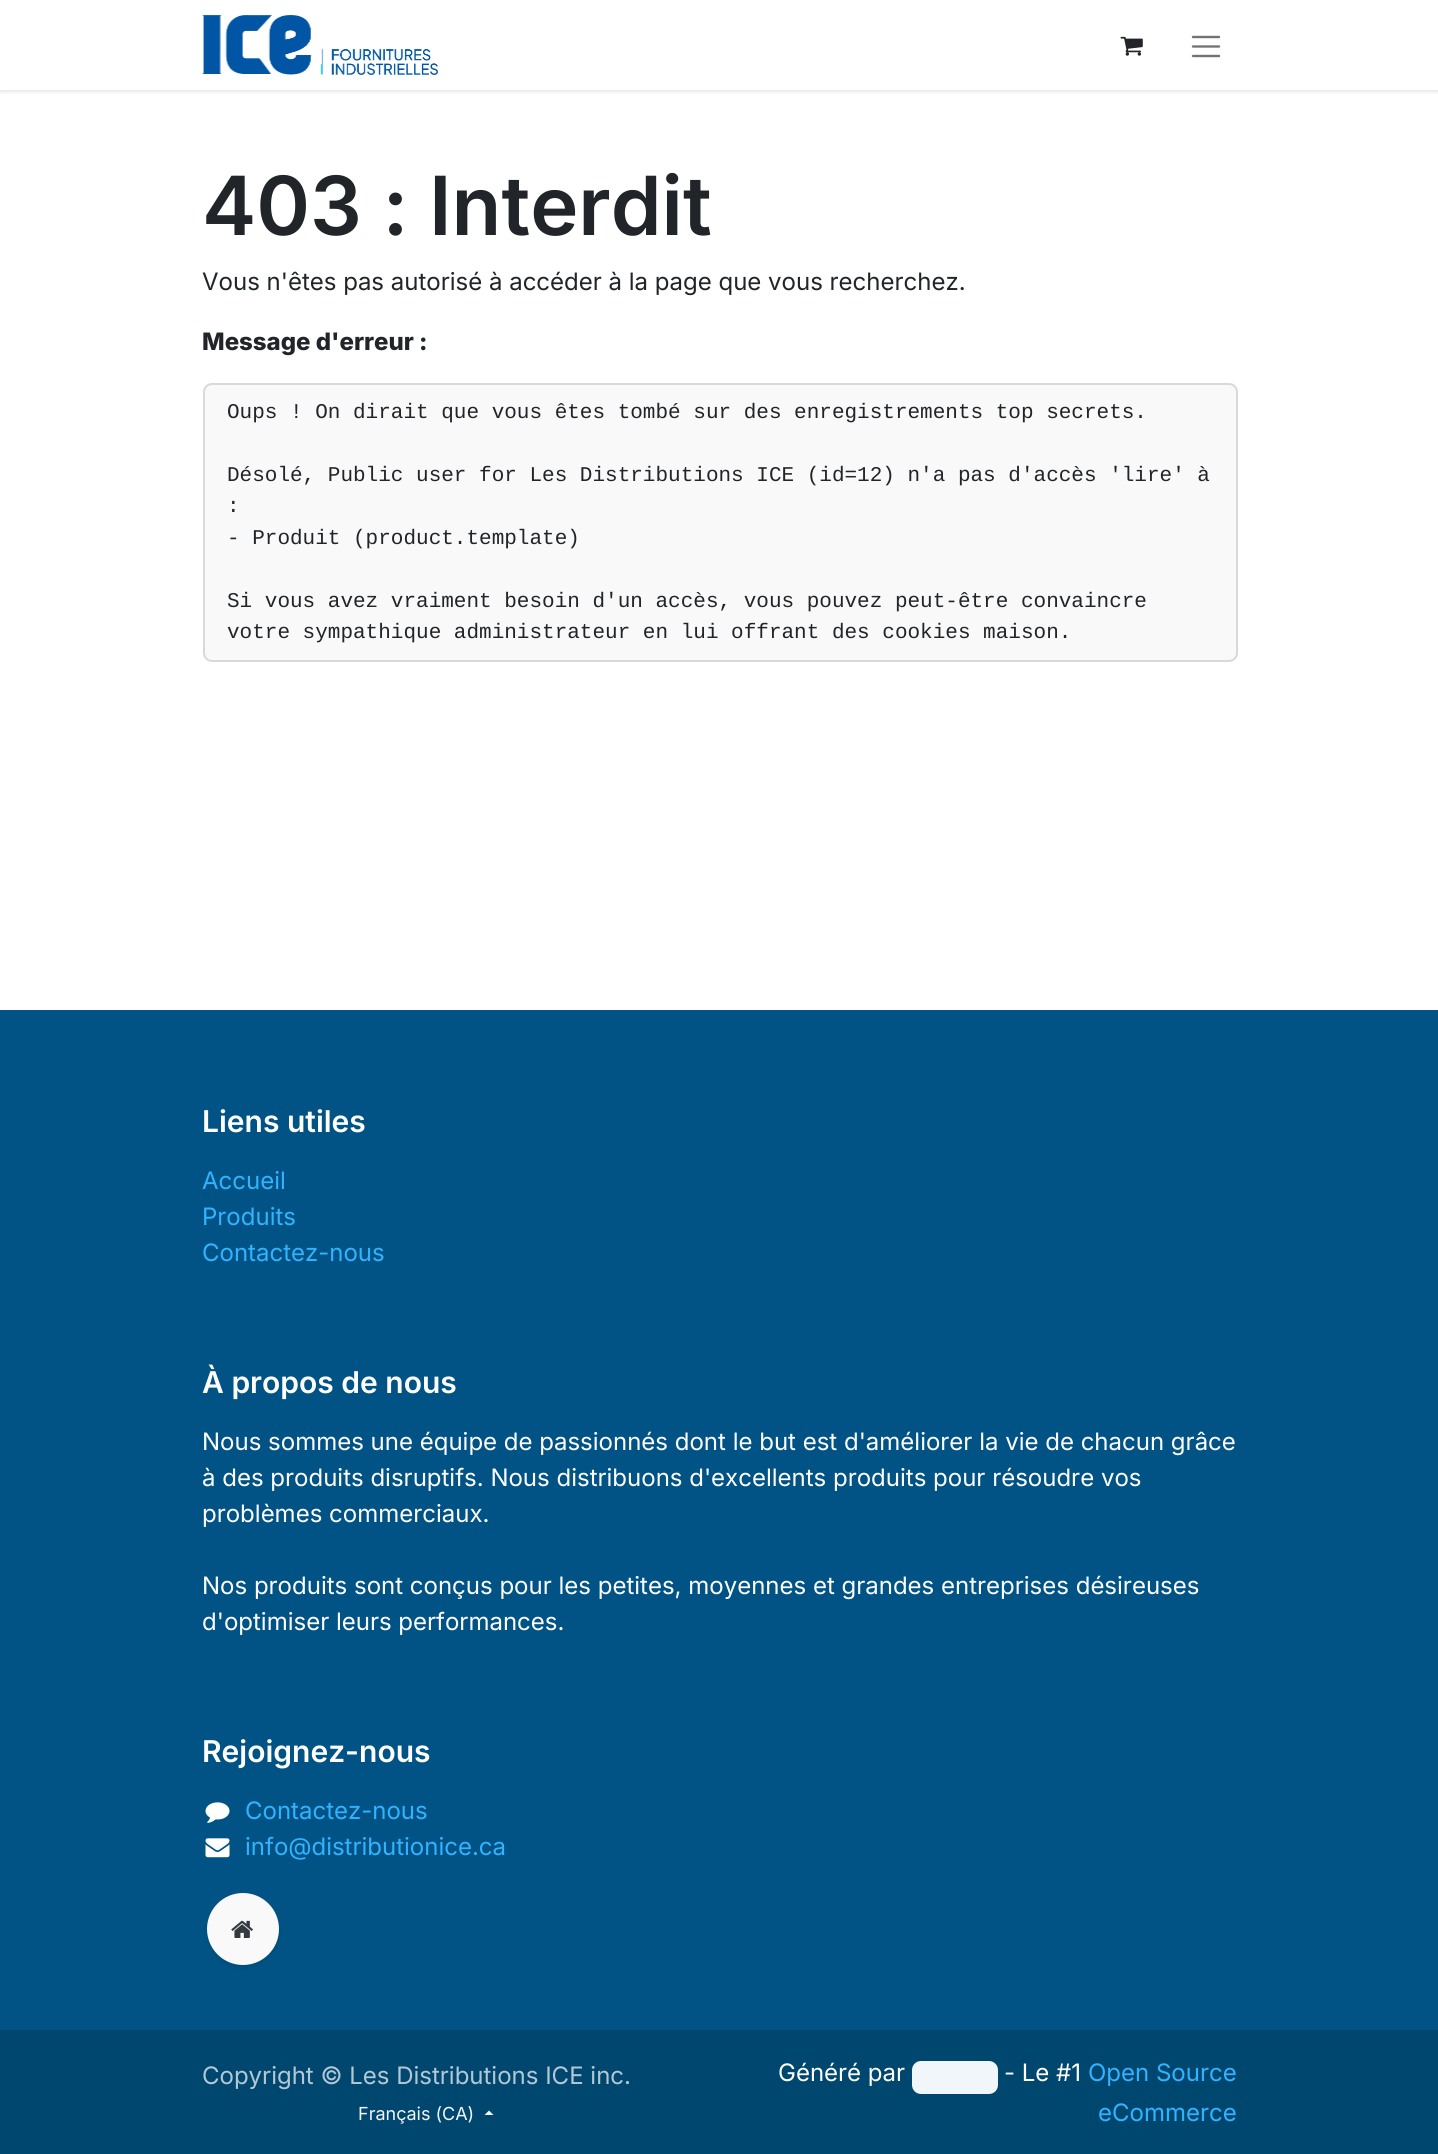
#include <cairo.h>
#include <math.h>
#include <stddef.h>


static void round_rect(cairo_t *cr, double x, double y, double w, double h, double r) {
    cairo_new_sub_path(cr);
    cairo_arc(cr, x + w - r, y + h - r, r, 0, M_PI / 2);
    cairo_arc(cr, x + r, y + h - r, r, M_PI / 2, M_PI);
    cairo_arc(cr, x + r, y + r, r, M_PI, 1.5 * M_PI);
    cairo_arc(cr, x + w - r, y + r, r, 1.5 * M_PI, 2 * M_PI);
    cairo_close_path(cr);
}

static void shadow(cairo_t *cr, double x, double y, double w, double h, double r, double blur, double alpha) {
    cairo_push_group_with_content(cr, CAIRO_CONTENT_ALPHA);
    cairo_set_operator(cr, CAIRO_OPERATOR_SOURCE);
    for (int i = 15; i >= -15 && fmin(w, h) + blur * i / 3 > 0; i -= 2) {
        double e = blur * i / 6;
        cairo_set_source_rgba(cr, 0, 0, 0, alpha * erfc((i - 1) / 8.5) / 2);
        round_rect(cr, x - e, y - e, w + 2 * e, h + 2 * e, fmax(0, fmin(r + e + blur * .6, fmin(w, h) / 2 + e)));
        cairo_fill(cr);
    }
    cairo_pattern_t *soft = cairo_pop_group(cr);
    cairo_mask(cr, soft);
    cairo_pattern_destroy(soft);
}

static void picture(cairo_t *cr, const char *path, double x, double y, double w, double h) {
    cairo_surface_t *image = cairo_image_surface_create_from_png(path);
    cairo_save(cr);
    cairo_set_source_surface(cr, image, x, y);
    cairo_rectangle(cr, x, y, w, h);
    cairo_fill(cr);
    cairo_restore(cr);
    cairo_surface_destroy(image);
}

int main(void) {
    cairo_surface_t *surface = cairo_image_surface_create(CAIRO_FORMAT_RGB24, 1438, 2154);
    cairo_t *cr = cairo_create(surface);
    cairo_font_options_t *options = cairo_font_options_create();
    cairo_font_options_set_hint_metrics(options, CAIRO_HINT_METRICS_OFF);
    cairo_font_options_set_hint_style(options, CAIRO_HINT_STYLE_NONE);
    cairo_set_font_options(cr, options);
    cairo_set_miter_limit(cr, 4);
    cairo_set_source_rgb(cr, 1, 1, 1);
    cairo_paint(cr);
    cairo_save(cr);
    cairo_rectangle(cr, 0, 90, 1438, 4);
    cairo_clip(cr);
    cairo_set_source_rgb(cr, 0, 0, 0);
    shadow(cr, 0, 2, 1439, 90, 0, 2, 0.1);
    cairo_restore(cr);
    picture(cr, "img1.png", 202, 15, 236, 60);
    picture(cr, "img2.png", 1120, 36, 23, 20);
    cairo_new_path(cr);
    cairo_move_to(cr, 1193, 37);
    cairo_line_to(cr, 1219, 37);
    cairo_move_to(cr, 1193, 46.5);
    cairo_line_to(cr, 1219, 46.5);
    cairo_move_to(cr, 1193, 56);
    cairo_line_to(cr, 1219, 56);
    cairo_set_source_rgb(cr, 0.451, 0.451, 0.451);
    cairo_set_line_width(cr, 2.4);
    cairo_set_line_cap(cr, CAIRO_LINE_CAP_ROUND);
    cairo_stroke(cr);
    cairo_select_font_face(cr, "Inter SemiBold", CAIRO_FONT_SLANT_NORMAL, CAIRO_FONT_WEIGHT_NORMAL);
    cairo_set_font_size(cr, 81.5);
    cairo_set_source_rgb(cr, 0.129, 0.145, 0.161);
    cairo_move_to(cr, 202, 235);
    cairo_show_text(cr, "403 : Interdit");
    cairo_select_font_face(cr, "Inter", CAIRO_FONT_SLANT_NORMAL, CAIRO_FONT_WEIGHT_NORMAL);
    cairo_set_font_size(cr, 24);
    cairo_move_to(cr, 202, 290);
    cairo_show_text(cr, "Vous n'êtes pas autorisé à accéder à la page que vous recherchez.");
    cairo_select_font_face(cr, "Inter ExtraBold", CAIRO_FONT_SLANT_NORMAL, CAIRO_FONT_WEIGHT_NORMAL);
    cairo_move_to(cr, 202, 350);
    cairo_show_text(cr, "Message d'erreur :");
    cairo_set_source_rgb(cr, 0.973, 0.976, 0.98);
    round_rect(cr, 203, 383, 1035, 279, 9);
    cairo_fill(cr);
    round_rect(cr, 204, 384, 1033, 277, 8);
    cairo_set_source_rgba(cr, 0.129, 0.145, 0.161, 0.15);
    cairo_set_line_width(cr, 2);
    cairo_set_line_cap(cr, CAIRO_LINE_CAP_BUTT);
    cairo_stroke(cr);
    cairo_select_font_face(cr, "Liberation Mono", CAIRO_FONT_SLANT_NORMAL, CAIRO_FONT_WEIGHT_NORMAL);
    cairo_set_font_size(cr, 21);
    cairo_set_source_rgb(cr, 0.129, 0.145, 0.161);
    cairo_move_to(cr, 227, 418);
    cairo_show_text(cr, "Oups ! On dirait que vous êtes tombé sur des enregistrements top secrets.");
    cairo_move_to(cr, 227, 481);
    cairo_show_text(cr, "Désolé, Public user for Les Distributions ICE (id=12) n'a pas d'accès 'lire' à");
    cairo_move_to(cr, 227, 512);
    cairo_show_text(cr, ":");
    cairo_move_to(cr, 227, 544);
    cairo_show_text(cr, "- Produit (product.template)");
    cairo_move_to(cr, 227, 607);
    cairo_show_text(cr, "Si vous avez vraiment besoin d'un accès, vous pouvez peut-être convaincre");
    cairo_move_to(cr, 227, 638);
    cairo_show_text(cr, "votre sympathique administrateur en lui offrant des cookies maison.");
    cairo_set_source_rgb(cr, 0, 0.325, 0.518);
    cairo_rectangle(cr, 0, 1010, 1438, 1020);
    cairo_fill(cr);
    cairo_select_font_face(cr, "Inter SemiBold", CAIRO_FONT_SLANT_NORMAL, CAIRO_FONT_WEIGHT_NORMAL);
    cairo_set_font_size(cr, 30);
    cairo_set_source_rgb(cr, 1, 1, 1);
    cairo_move_to(cr, 202, 1132);
    cairo_show_text(cr, "Liens utiles");
    cairo_select_font_face(cr, "Inter", CAIRO_FONT_SLANT_NORMAL, CAIRO_FONT_WEIGHT_NORMAL);
    cairo_set_font_size(cr, 24);
    cairo_set_source_rgb(cr, 0.192, 0.702, 1);
    cairo_move_to(cr, 202, 1189);
    cairo_show_text(cr, "Accueil");
    cairo_move_to(cr, 202, 1225);
    cairo_show_text(cr, "Produits");
    cairo_move_to(cr, 202, 1261);
    cairo_show_text(cr, "Contactez-nous");
    cairo_select_font_face(cr, "Inter SemiBold", CAIRO_FONT_SLANT_NORMAL, CAIRO_FONT_WEIGHT_NORMAL);
    cairo_set_font_size(cr, 30);
    cairo_set_source_rgb(cr, 1, 1, 1);
    cairo_move_to(cr, 202, 1393);
    cairo_show_text(cr, "À propos de nous");
    cairo_select_font_face(cr, "Inter", CAIRO_FONT_SLANT_NORMAL, CAIRO_FONT_WEIGHT_NORMAL);
    cairo_set_font_size(cr, 24);
    cairo_move_to(cr, 202, 1450);
    cairo_show_text(cr, "Nous sommes une équipe de passionnés dont le but est d'améliorer la vie de chacun grâce");
    cairo_move_to(cr, 202, 1486);
    cairo_show_text(cr, "à des produits disruptifs. Nous distribuons d'excellents produits pour résoudre vos");
    cairo_move_to(cr, 202, 1522);
    cairo_show_text(cr, "problèmes commerciaux.");
    cairo_move_to(cr, 202, 1594);
    cairo_show_text(cr, "Nos produits sont conçus pour les petites, moyennes et grandes entreprises désireuses");
    cairo_move_to(cr, 202, 1630);
    cairo_show_text(cr, "d'optimiser leurs performances.");
    cairo_select_font_face(cr, "Inter SemiBold", CAIRO_FONT_SLANT_NORMAL, CAIRO_FONT_WEIGHT_NORMAL);
    cairo_set_font_size(cr, 30);
    cairo_move_to(cr, 202, 1762);
    cairo_show_text(cr, "Rejoignez-nous");
    picture(cr, "img3.png", 205, 1802, 25, 21);
    cairo_select_font_face(cr, "Inter", CAIRO_FONT_SLANT_NORMAL, CAIRO_FONT_WEIGHT_NORMAL);
    cairo_set_font_size(cr, 24);
    cairo_set_source_rgb(cr, 0.192, 0.702, 1);
    cairo_move_to(cr, 245, 1819);
    cairo_show_text(cr, "Contactez-nous");
    picture(cr, "img4.png", 205, 1838, 25, 20);
    cairo_move_to(cr, 245, 1855);
    cairo_show_text(cr, "info@distributionice.ca");
    cairo_set_source_rgb(cr, 0, 0, 0);
    shadow(cr, 207, 1895, 72, 72, 36, 2, 0.1);
    cairo_set_source_rgb(cr, 0.973, 0.976, 0.98);
    cairo_arc(cr, 243, 1929, 36, 0, 2 * M_PI);
    cairo_fill(cr);
    picture(cr, "img5.png", 231, 1920, 22, 18);
    cairo_set_source_rgb(cr, 0, 0.278, 0.439);
    cairo_rectangle(cr, 0, 2030, 1438, 124);
    cairo_fill(cr);
    cairo_set_source_rgb(cr, 0.702, 0.784, 0.831);
    cairo_move_to(cr, 202, 2084);
    cairo_show_text(cr, "Copyright © Les Distributions ICE inc.");
    cairo_set_font_size(cr, 18);
    cairo_set_source_rgb(cr, 0.945, 0.961, 0.98);
    cairo_move_to(cr, 358, 2120);
    cairo_show_text(cr, "Français (CA)");
    cairo_new_path(cr);
    cairo_move_to(cr, 493.5, 2115);
    cairo_line_to(cr, 484.5, 2115);
    cairo_line_to(cr, 489, 2110.5);
    cairo_close_path(cr);
    cairo_fill(cr);
    cairo_set_font_size(cr, 24);
    cairo_set_source_rgb(cr, 1, 1, 1);
    cairo_move_to(cr, 778, 2081);
    cairo_show_text(cr, "Généré par");
    cairo_set_source_rgb(cr, 0.945, 0.961, 0.98);
    round_rect(cr, 912, 2061, 86, 33, 9);
    cairo_fill(cr);
    cairo_set_source_rgb(cr, 1, 1, 1);
    cairo_move_to(cr, 1004, 2081);
    cairo_show_text(cr, "- Le #1");
    cairo_set_source_rgb(cr, 0.192, 0.702, 1);
    cairo_move_to(cr, 1088, 2081);
    cairo_show_text(cr, "Open Source");
    cairo_move_to(cr, 1098, 2121);
    cairo_show_text(cr, "eCommerce");
    cairo_surface_write_to_png(surface, "page.png");
    cairo_font_options_destroy(options);
    cairo_destroy(cr);
    cairo_surface_destroy(surface);
    return 0;
}
